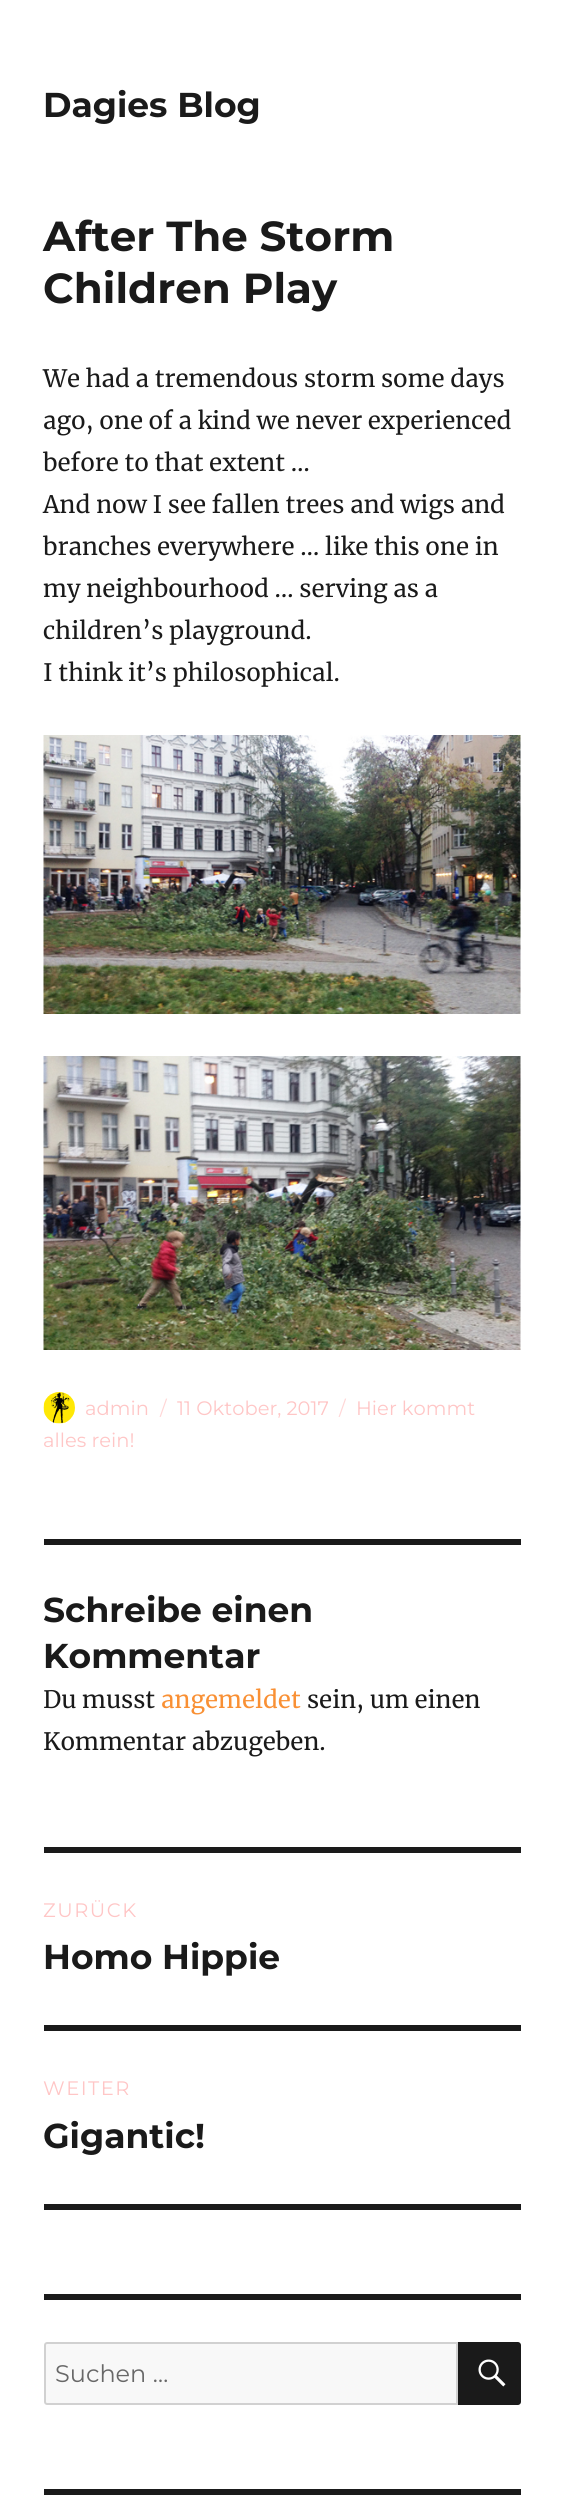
#include <cairo.h>
#include <math.h>
#include <stddef.h>


static void spaced_text(cairo_t *cr, double x, double y, const char *s, double letter, double word) {
    cairo_move_to(cr, x, y);
    while (*s) {
        char ch[5] = {0};
        int n = 0;
        do ch[n++] = *s++; while ((*s & 0xC0) == 0x80);
        cairo_show_text(cr, ch);
        cairo_rel_move_to(cr, letter + word * (*ch == ' '), 0);
    }
}

static void picture(cairo_t *cr, const char *path, double x, double y, double w, double h) {
    cairo_surface_t *image = cairo_image_surface_create_from_png(path);
    cairo_save(cr);
    cairo_set_source_surface(cr, image, x, y);
    cairo_rectangle(cr, x, y, w, h);
    cairo_fill(cr);
    cairo_restore(cr);
    cairo_surface_destroy(image);
}

int main(void) {
    cairo_surface_t *surface = cairo_image_surface_create(CAIRO_FORMAT_RGB24, 563, 2506);
    cairo_t *cr = cairo_create(surface);
    cairo_font_options_t *options = cairo_font_options_create();
    cairo_font_options_set_hint_metrics(options, CAIRO_HINT_METRICS_OFF);
    cairo_font_options_set_hint_style(options, CAIRO_HINT_STYLE_NONE);
    cairo_set_font_options(cr, options);
    cairo_set_miter_limit(cr, 4);
    cairo_set_source_rgb(cr, 1, 1, 1);
    cairo_paint(cr);
    cairo_select_font_face(cr, "Montserrat Thin", CAIRO_FONT_SLANT_NORMAL, CAIRO_FONT_WEIGHT_NORMAL);
    cairo_set_font_size(cr, 34.5);
    cairo_set_source_rgb(cr, 0.102, 0.102, 0.102);
    cairo_move_to(cr, 43, 117);
    cairo_show_text(cr, "Dagies Blog");
    cairo_set_font_size(cr, 42);
    cairo_move_to(cr, 43, 251);
    cairo_show_text(cr, "After The Storm");
    cairo_move_to(cr, 43, 303);
    cairo_show_text(cr, "Children Play");
    cairo_select_font_face(cr, "Merriweather", CAIRO_FONT_SLANT_NORMAL, CAIRO_FONT_WEIGHT_NORMAL);
    cairo_set_font_size(cr, 24);
    cairo_move_to(cr, 43, 387);
    cairo_show_text(cr, "We had a tremendous storm some days");
    cairo_move_to(cr, 43, 429);
    cairo_show_text(cr, "ago, one of a kind we never experienced");
    cairo_move_to(cr, 43, 471);
    cairo_show_text(cr, "before to that extent …");
    cairo_move_to(cr, 43, 513);
    cairo_show_text(cr, "And now I see fallen trees and wigs and");
    cairo_move_to(cr, 43, 555);
    cairo_show_text(cr, "branches everywhere … like this one in");
    cairo_move_to(cr, 43, 597);
    cairo_show_text(cr, "my neighbourhood … serving as a");
    cairo_move_to(cr, 43, 639);
    cairo_show_text(cr, "children’s playground.");
    cairo_move_to(cr, 43, 681);
    cairo_show_text(cr, "I think it’s philosophical.");
    picture(cr, "img1.png", 43, 735, 478, 279);
    picture(cr, "img2.png", 43, 1056, 478, 294);
    picture(cr, "img3.png", 43, 1392, 32, 32);
    cairo_select_font_face(cr, "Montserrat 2 Thin", CAIRO_FONT_SLANT_NORMAL, CAIRO_FONT_WEIGHT_NORMAL);
    cairo_set_font_size(cr, 19.5);
    cairo_set_source_rgb(cr, 1, 0.776, 0.776);
    cairo_move_to(cr, 85, 1415);
    cairo_show_text(cr, "admin");
    cairo_set_source_rgb(cr, 1, 0.843, 0.843);
    cairo_move_to(cr, 160, 1415);
    cairo_show_text(cr, "/");
    cairo_set_source_rgb(cr, 1, 0.776, 0.776);
    cairo_move_to(cr, 177, 1415);
    cairo_show_text(cr, "11 Oktober, 2017");
    cairo_set_source_rgb(cr, 1, 0.843, 0.843);
    cairo_move_to(cr, 339, 1415);
    cairo_show_text(cr, "/");
    cairo_set_source_rgb(cr, 1, 0.776, 0.776);
    cairo_move_to(cr, 356, 1415);
    cairo_show_text(cr, "Hier kommt");
    cairo_move_to(cr, 43, 1447);
    cairo_show_text(cr, "alles rein!");
    cairo_set_source_rgb(cr, 0.102, 0.102, 0.102);
    cairo_rectangle(cr, 44, 1539, 477, 6);
    cairo_fill(cr);
    cairo_select_font_face(cr, "Montserrat Thin", CAIRO_FONT_SLANT_NORMAL, CAIRO_FONT_WEIGHT_NORMAL);
    cairo_set_font_size(cr, 34.5);
    cairo_move_to(cr, 43, 1622);
    cairo_show_text(cr, "Schreibe einen");
    cairo_move_to(cr, 43, 1668);
    cairo_show_text(cr, "Kommentar");
    cairo_select_font_face(cr, "Merriweather", CAIRO_FONT_SLANT_NORMAL, CAIRO_FONT_WEIGHT_NORMAL);
    cairo_set_font_size(cr, 24);
    cairo_move_to(cr, 43, 1708);
    cairo_show_text(cr, "Du musst");
    cairo_set_source_rgb(cr, 0.976, 0.565, 0.204);
    cairo_move_to(cr, 161, 1708);
    cairo_show_text(cr, "angemeldet");
    cairo_set_source_rgb(cr, 0.102, 0.102, 0.102);
    cairo_move_to(cr, 307, 1708);
    cairo_show_text(cr, "sein, um einen");
    cairo_move_to(cr, 43, 1750);
    cairo_show_text(cr, "Kommentar abzugeben.");
    cairo_rectangle(cr, 44, 1847, 477, 6);
    cairo_fill(cr);
    cairo_rectangle(cr, 44, 2204, 477, 6);
    cairo_fill(cr);
    cairo_select_font_face(cr, "Montserrat 2 Thin", CAIRO_FONT_SLANT_NORMAL, CAIRO_FONT_WEIGHT_NORMAL);
    cairo_set_font_size(cr, 19.5);
    cairo_set_source_rgb(cr, 1, 0.776, 0.776);
    spaced_text(cr, 43, 1917, "ZURÜCK", 1.5, 0);
    cairo_select_font_face(cr, "Montserrat Thin", CAIRO_FONT_SLANT_NORMAL, CAIRO_FONT_WEIGHT_NORMAL);
    cairo_set_font_size(cr, 34.5);
    cairo_set_source_rgb(cr, 0.102, 0.102, 0.102);
    cairo_move_to(cr, 43, 1969);
    cairo_show_text(cr, "Homo Hippie");
    cairo_rectangle(cr, 44, 2025, 477, 6);
    cairo_fill(cr);
    cairo_select_font_face(cr, "Montserrat 2 Thin", CAIRO_FONT_SLANT_NORMAL, CAIRO_FONT_WEIGHT_NORMAL);
    cairo_set_font_size(cr, 19.5);
    cairo_set_source_rgb(cr, 1, 0.776, 0.776);
    spaced_text(cr, 43, 2095, "WEITER", 1.5, 0);
    cairo_select_font_face(cr, "Montserrat Thin", CAIRO_FONT_SLANT_NORMAL, CAIRO_FONT_WEIGHT_NORMAL);
    cairo_set_font_size(cr, 34.5);
    cairo_set_source_rgb(cr, 0.102, 0.102, 0.102);
    cairo_move_to(cr, 43, 2148);
    cairo_show_text(cr, "Gigantic!");
    cairo_rectangle(cr, 44, 2294, 477, 6);
    cairo_fill(cr);
    cairo_set_source_rgb(cr, 0.969, 0.969, 0.969);
    cairo_new_path(cr);
    cairo_move_to(cr, 47, 2343);
    cairo_line_to(cr, 457, 2343);
    cairo_line_to(cr, 457, 2404);
    cairo_line_to(cr, 47, 2404);
    cairo_curve_to(cr, 46, 2404, 45, 2403, 45, 2402);
    cairo_line_to(cr, 45, 2345);
    cairo_curve_to(cr, 45, 2344, 46, 2343, 47, 2343);
    cairo_close_path(cr);
    cairo_fill_preserve(cr);
    cairo_set_source_rgb(cr, 0.82, 0.82, 0.82);
    cairo_stroke(cr);
    cairo_select_font_face(cr, "Montserrat 2 Thin", CAIRO_FONT_SLANT_NORMAL, CAIRO_FONT_WEIGHT_NORMAL);
    cairo_set_font_size(cr, 24);
    cairo_set_source_rgb(cr, 0.408, 0.408, 0.408);
    cairo_move_to(cr, 55, 2382);
    cairo_show_text(cr, "Suchen …");
    cairo_set_source_rgb(cr, 0.102, 0.102, 0.102);
    cairo_new_path(cr);
    cairo_move_to(cr, 458, 2342);
    cairo_line_to(cr, 518, 2342);
    cairo_curve_to(cr, 519.5, 2342, 521, 2343.5, 521, 2345);
    cairo_line_to(cr, 521, 2402);
    cairo_curve_to(cr, 521, 2403.5, 519.5, 2405, 518, 2405);
    cairo_line_to(cr, 458, 2405);
    cairo_close_path(cr);
    cairo_fill(cr);
    picture(cr, "img4.png", 478, 2359, 28, 28);
    cairo_rectangle(cr, 44, 2489, 477, 6);
    cairo_fill(cr);
    cairo_surface_write_to_png(surface, "page.png");
    cairo_font_options_destroy(options);
    cairo_destroy(cr);
    cairo_surface_destroy(surface);
    return 0;
}
